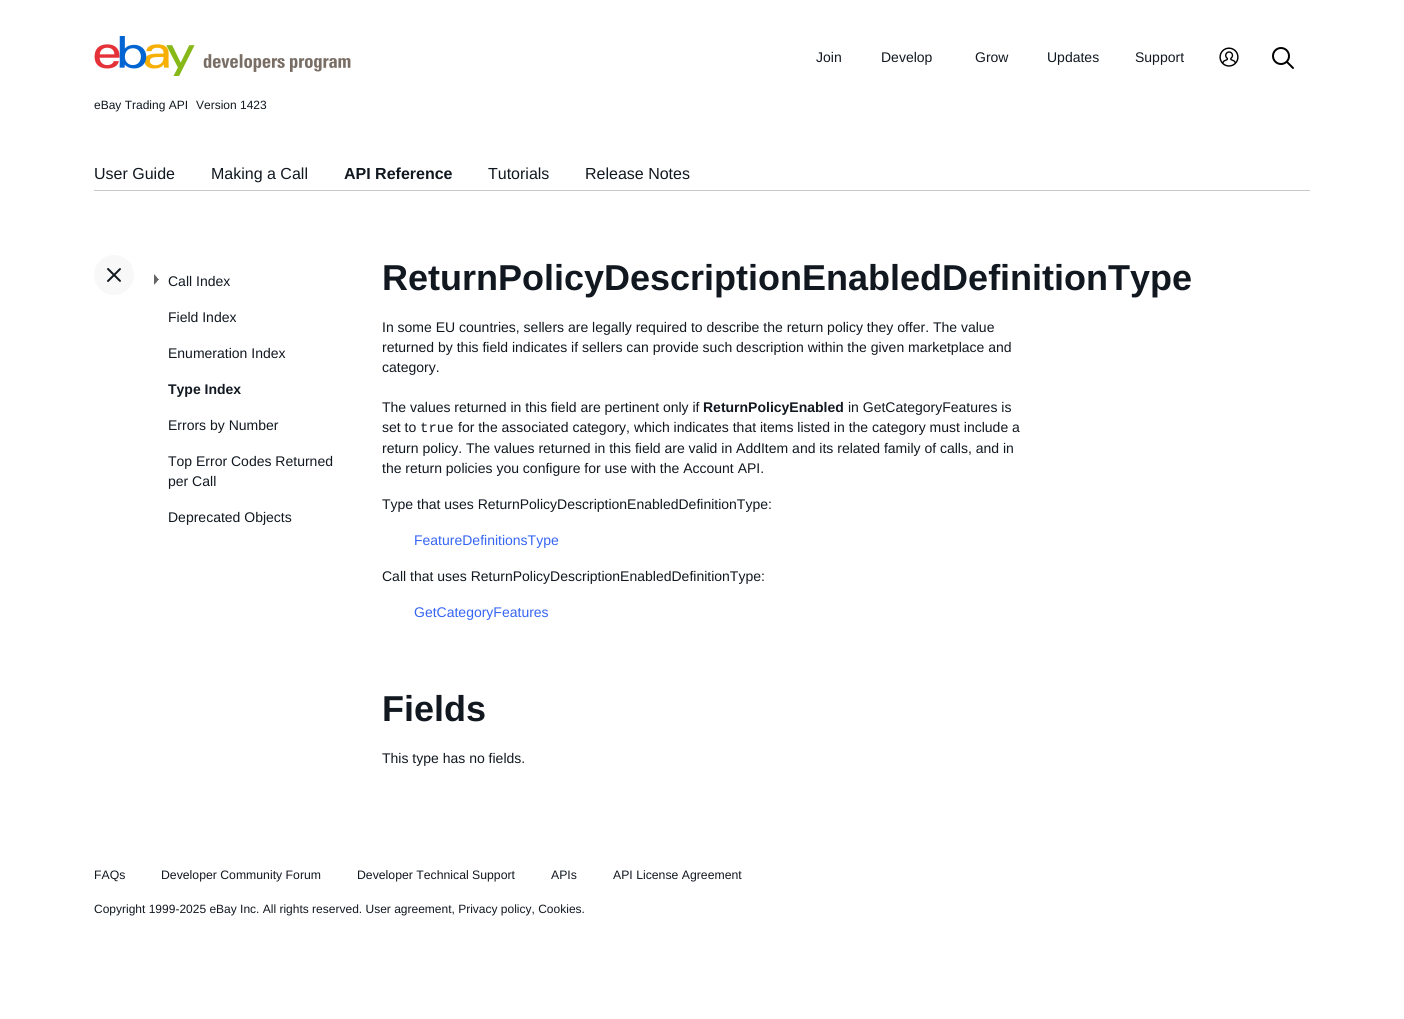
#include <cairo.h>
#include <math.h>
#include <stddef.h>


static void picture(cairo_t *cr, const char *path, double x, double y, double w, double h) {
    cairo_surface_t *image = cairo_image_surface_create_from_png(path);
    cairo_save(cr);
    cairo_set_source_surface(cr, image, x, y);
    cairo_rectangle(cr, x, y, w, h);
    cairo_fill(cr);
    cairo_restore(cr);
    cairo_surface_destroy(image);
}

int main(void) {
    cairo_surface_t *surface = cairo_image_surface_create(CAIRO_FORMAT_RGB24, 1404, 1019);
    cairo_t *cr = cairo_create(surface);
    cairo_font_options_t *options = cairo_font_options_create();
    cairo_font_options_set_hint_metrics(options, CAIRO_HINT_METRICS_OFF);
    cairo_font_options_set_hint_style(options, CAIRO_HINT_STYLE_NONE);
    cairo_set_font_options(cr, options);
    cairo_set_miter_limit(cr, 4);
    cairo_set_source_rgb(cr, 1, 1, 1);
    cairo_paint(cr);
    picture(cr, "img1.png", 94, 36, 257, 40);
    cairo_select_font_face(cr, "Liberation Sans", CAIRO_FONT_SLANT_NORMAL, CAIRO_FONT_WEIGHT_NORMAL);
    cairo_set_font_size(cr, 14);
    cairo_set_source_rgb(cr, 0.067, 0.094, 0.125);
    cairo_move_to(cr, 816, 62);
    cairo_show_text(cr, "Join");
    cairo_move_to(cr, 881, 62);
    cairo_show_text(cr, "Develop");
    cairo_move_to(cr, 975, 62);
    cairo_show_text(cr, "Grow");
    cairo_move_to(cr, 1047, 62);
    cairo_show_text(cr, "Updates");
    cairo_move_to(cr, 1135, 62);
    cairo_show_text(cr, "Support");
    picture(cr, "img2.png", 1219, 47, 20, 20);
    picture(cr, "img3.png", 1272, 47, 22, 22);
    cairo_set_font_size(cr, 12);
    cairo_move_to(cr, 94, 109);
    cairo_show_text(cr, "eBay Trading API");
    cairo_move_to(cr, 196, 109);
    cairo_show_text(cr, "Version 1423");
    cairo_set_source_rgb(cr, 0.78, 0.78, 0.78);
    cairo_rectangle(cr, 94, 190, 1216, 1);
    cairo_fill(cr);
    cairo_set_font_size(cr, 16);
    cairo_set_source_rgb(cr, 0.067, 0.094, 0.125);
    cairo_move_to(cr, 94, 179);
    cairo_show_text(cr, "User Guide");
    cairo_move_to(cr, 211, 179);
    cairo_show_text(cr, "Making a Call");
    cairo_select_font_face(cr, "Liberation Sans", CAIRO_FONT_SLANT_NORMAL, CAIRO_FONT_WEIGHT_BOLD);
    cairo_move_to(cr, 344, 179);
    cairo_show_text(cr, "API Reference");
    cairo_select_font_face(cr, "Liberation Sans", CAIRO_FONT_SLANT_NORMAL, CAIRO_FONT_WEIGHT_NORMAL);
    cairo_move_to(cr, 488, 179);
    cairo_show_text(cr, "Tutorials");
    cairo_move_to(cr, 585, 179);
    cairo_show_text(cr, "Release Notes");
    cairo_set_source_rgb(cr, 0.969, 0.969, 0.969);
    cairo_new_path(cr);
    cairo_arc(cr, 114, 275, 20, 0, 2 * M_PI);
    cairo_fill(cr);
    picture(cr, "img4.png", 107, 268, 14, 14);
    picture(cr, "img5.png", 154, 274, 5, 11);
    cairo_set_font_size(cr, 14);
    cairo_set_source_rgb(cr, 0.067, 0.094, 0.125);
    cairo_move_to(cr, 168, 286);
    cairo_show_text(cr, "Call Index");
    cairo_move_to(cr, 168, 322);
    cairo_show_text(cr, "Field Index");
    cairo_move_to(cr, 168, 358);
    cairo_show_text(cr, "Enumeration Index");
    cairo_select_font_face(cr, "Liberation Sans", CAIRO_FONT_SLANT_NORMAL, CAIRO_FONT_WEIGHT_BOLD);
    cairo_move_to(cr, 168, 394);
    cairo_show_text(cr, "Type Index");
    cairo_select_font_face(cr, "Liberation Sans", CAIRO_FONT_SLANT_NORMAL, CAIRO_FONT_WEIGHT_NORMAL);
    cairo_move_to(cr, 168, 430);
    cairo_show_text(cr, "Errors by Number");
    cairo_move_to(cr, 168, 466);
    cairo_show_text(cr, "Top Error Codes Returned");
    cairo_move_to(cr, 168, 486);
    cairo_show_text(cr, "per Call");
    cairo_move_to(cr, 168, 522);
    cairo_show_text(cr, "Deprecated Objects");
    cairo_select_font_face(cr, "Liberation Sans", CAIRO_FONT_SLANT_NORMAL, CAIRO_FONT_WEIGHT_BOLD);
    cairo_set_font_size(cr, 36);
    cairo_move_to(cr, 382, 290);
    cairo_show_text(cr, "ReturnPolicyDescriptionEnabledDefinitionType");
    cairo_select_font_face(cr, "Liberation Sans", CAIRO_FONT_SLANT_NORMAL, CAIRO_FONT_WEIGHT_NORMAL);
    cairo_set_font_size(cr, 14);
    cairo_move_to(cr, 382, 332);
    cairo_show_text(cr, "In some EU countries, sellers are legally required to describe the return policy they offer. The value");
    cairo_move_to(cr, 382, 352);
    cairo_show_text(cr, "returned by this field indicates if sellers can provide such description within the given marketplace and");
    cairo_move_to(cr, 382, 372);
    cairo_show_text(cr, "category.");
    cairo_move_to(cr, 382, 412);
    cairo_show_text(cr, "The values returned in this field are pertinent only if");
    cairo_select_font_face(cr, "Liberation Sans", CAIRO_FONT_SLANT_NORMAL, CAIRO_FONT_WEIGHT_BOLD);
    cairo_move_to(cr, 703, 412);
    cairo_show_text(cr, "ReturnPolicyEnabled");
    cairo_select_font_face(cr, "Liberation Sans", CAIRO_FONT_SLANT_NORMAL, CAIRO_FONT_WEIGHT_NORMAL);
    cairo_move_to(cr, 848, 412);
    cairo_show_text(cr, "in GetCategoryFeatures is");
    cairo_move_to(cr, 382, 432);
    cairo_show_text(cr, "set to");
    cairo_select_font_face(cr, "Liberation Mono", CAIRO_FONT_SLANT_NORMAL, CAIRO_FONT_WEIGHT_NORMAL);
    cairo_move_to(cr, 420, 432);
    cairo_show_text(cr, "true");
    cairo_select_font_face(cr, "Liberation Sans", CAIRO_FONT_SLANT_NORMAL, CAIRO_FONT_WEIGHT_NORMAL);
    cairo_move_to(cr, 458, 432);
    cairo_show_text(cr, "for the associated category, which indicates that items listed in the category must include a");
    cairo_move_to(cr, 382, 453);
    cairo_show_text(cr, "return policy. The values returned in this field are valid in AddItem and its related family of calls, and in");
    cairo_move_to(cr, 382, 473);
    cairo_show_text(cr, "the return policies you configure for use with the Account API.");
    cairo_move_to(cr, 382, 509);
    cairo_show_text(cr, "Type that uses ReturnPolicyDescriptionEnabledDefinitionType:");
    cairo_set_source_rgb(cr, 0.212, 0.396, 0.953);
    cairo_move_to(cr, 414, 545);
    cairo_show_text(cr, "FeatureDefinitionsType");
    cairo_set_source_rgb(cr, 0.067, 0.094, 0.125);
    cairo_move_to(cr, 382, 581);
    cairo_show_text(cr, "Call that uses ReturnPolicyDescriptionEnabledDefinitionType:");
    cairo_set_source_rgb(cr, 0.212, 0.396, 0.953);
    cairo_move_to(cr, 414, 617);
    cairo_show_text(cr, "GetCategoryFeatures");
    cairo_select_font_face(cr, "Liberation Sans", CAIRO_FONT_SLANT_NORMAL, CAIRO_FONT_WEIGHT_BOLD);
    cairo_set_font_size(cr, 36);
    cairo_set_source_rgb(cr, 0.067, 0.094, 0.125);
    cairo_move_to(cr, 382, 721);
    cairo_show_text(cr, "Fields");
    cairo_select_font_face(cr, "Liberation Sans", CAIRO_FONT_SLANT_NORMAL, CAIRO_FONT_WEIGHT_NORMAL);
    cairo_set_font_size(cr, 14);
    cairo_move_to(cr, 382, 763);
    cairo_show_text(cr, "This type has no fields.");
    cairo_set_font_size(cr, 12.25);
    cairo_move_to(cr, 94, 879);
    cairo_show_text(cr, "FAQs");
    cairo_move_to(cr, 161, 879);
    cairo_show_text(cr, "Developer Community Forum");
    cairo_move_to(cr, 357, 879);
    cairo_show_text(cr, "Developer Technical Support");
    cairo_move_to(cr, 551, 879);
    cairo_show_text(cr, "APIs");
    cairo_move_to(cr, 613, 879);
    cairo_show_text(cr, "API License Agreement");
    cairo_set_font_size(cr, 12);
    cairo_move_to(cr, 94, 913);
    cairo_show_text(cr, "Copyright 1999-2025 eBay Inc. All rights reserved. User agreement, Privacy policy, Cookies.");
    cairo_surface_write_to_png(surface, "page.png");
    cairo_font_options_destroy(options);
    cairo_destroy(cr);
    cairo_surface_destroy(surface);
    return 0;
}
